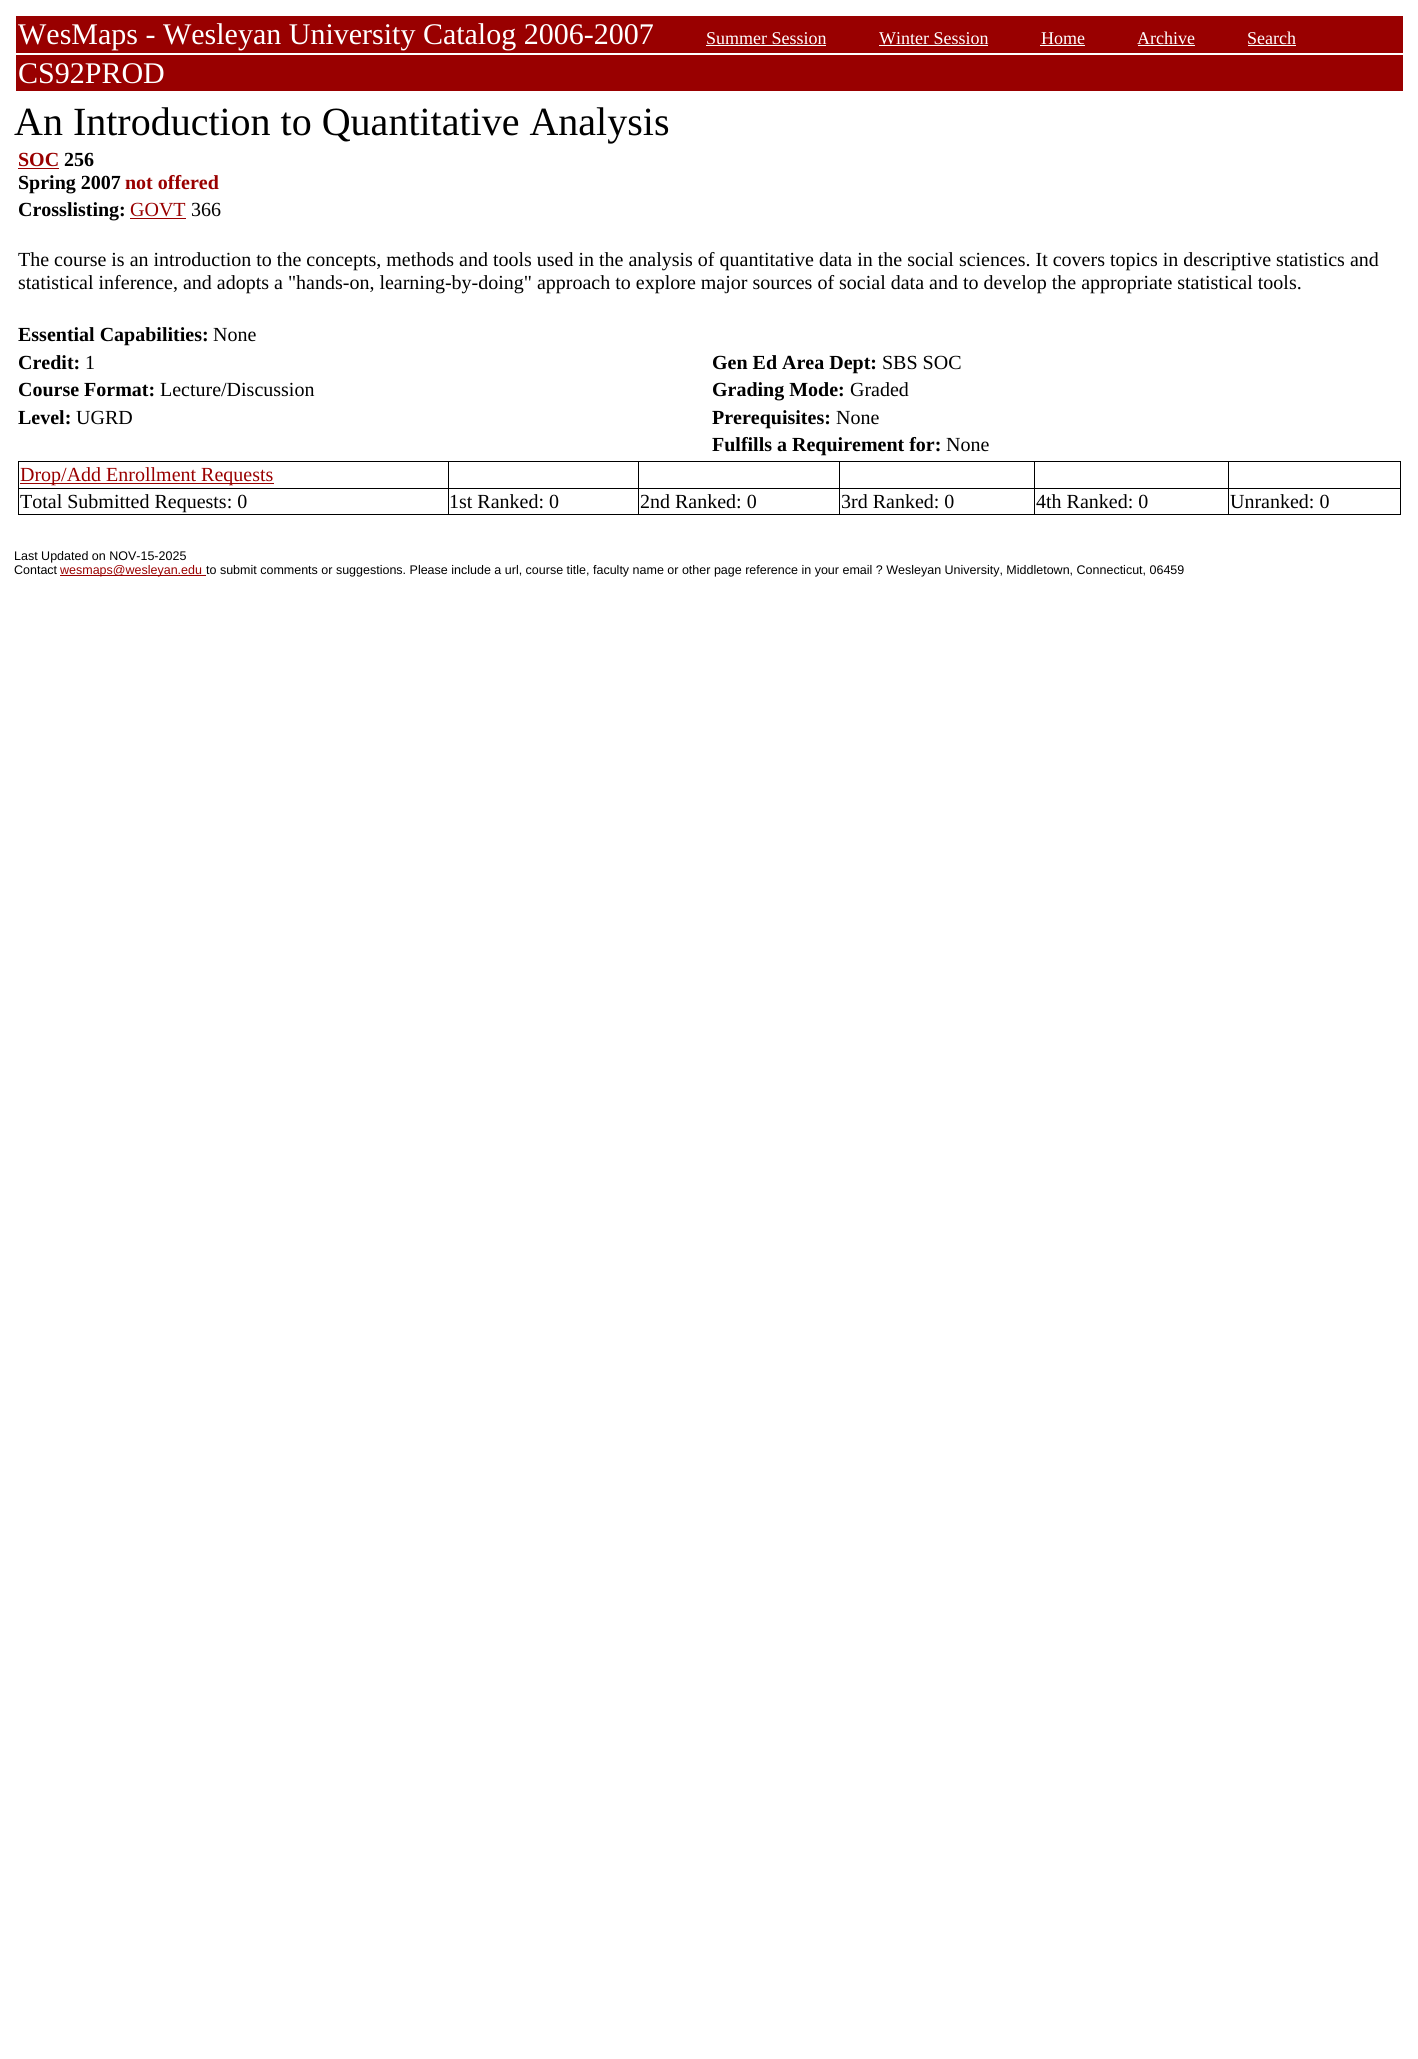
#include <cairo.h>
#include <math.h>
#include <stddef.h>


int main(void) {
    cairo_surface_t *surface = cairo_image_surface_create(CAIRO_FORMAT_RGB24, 1418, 2059);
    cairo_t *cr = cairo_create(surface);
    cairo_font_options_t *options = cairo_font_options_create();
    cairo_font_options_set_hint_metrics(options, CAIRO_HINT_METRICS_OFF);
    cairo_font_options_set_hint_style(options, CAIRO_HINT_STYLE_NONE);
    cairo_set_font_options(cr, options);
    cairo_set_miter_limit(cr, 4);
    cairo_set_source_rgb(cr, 1, 1, 1);
    cairo_paint(cr);
    cairo_set_source_rgb(cr, 0.6, 0, 0);
    cairo_rectangle(cr, 16, 16, 1387, 37);
    cairo_fill(cr);
    cairo_select_font_face(cr, "Liberation Serif", CAIRO_FONT_SLANT_NORMAL, CAIRO_FONT_WEIGHT_NORMAL);
    cairo_set_font_size(cr, 30);
    cairo_set_source_rgb(cr, 1, 1, 1);
    cairo_move_to(cr, 18, 44);
    cairo_show_text(cr, "WesMaps - Wesleyan University Catalog 2006-2007");
    cairo_set_font_size(cr, 18);
    cairo_move_to(cr, 706, 44);
    cairo_show_text(cr, "Summer Session");
    cairo_rectangle(cr, 706, 45, 120, 1);
    cairo_fill(cr);
    cairo_move_to(cr, 879, 44);
    cairo_show_text(cr, "Winter Session");
    cairo_rectangle(cr, 879, 45, 109, 1);
    cairo_fill(cr);
    cairo_move_to(cr, 1041, 44);
    cairo_show_text(cr, "Home");
    cairo_rectangle(cr, 1040, 45, 45, 1);
    cairo_fill(cr);
    cairo_move_to(cr, 1137, 44);
    cairo_show_text(cr, "Archive");
    cairo_rectangle(cr, 1138, 45, 57, 1);
    cairo_fill(cr);
    cairo_move_to(cr, 1247, 44);
    cairo_show_text(cr, "Search");
    cairo_rectangle(cr, 1248, 45, 48, 1);
    cairo_fill(cr);
    cairo_set_source_rgb(cr, 0.6, 0, 0);
    cairo_rectangle(cr, 16, 55, 1387, 36);
    cairo_fill(cr);
    cairo_set_font_size(cr, 30);
    cairo_set_source_rgb(cr, 1, 1, 1);
    cairo_move_to(cr, 18, 83);
    cairo_show_text(cr, "CS92PROD");
    cairo_set_font_size(cr, 40);
    cairo_set_source_rgb(cr, 0, 0, 0);
    cairo_move_to(cr, 14, 135);
    cairo_show_text(cr, "An Introduction to Quantitative Analysis");
    cairo_select_font_face(cr, "Liberation Serif", CAIRO_FONT_SLANT_NORMAL, CAIRO_FONT_WEIGHT_BOLD);
    cairo_set_font_size(cr, 20);
    cairo_set_source_rgb(cr, 0.6, 0, 0);
    cairo_move_to(cr, 18, 166);
    cairo_show_text(cr, "SOC");
    cairo_rectangle(cr, 18, 168, 41, 1);
    cairo_fill(cr);
    cairo_set_source_rgb(cr, 0, 0, 0);
    cairo_move_to(cr, 64, 166);
    cairo_show_text(cr, "256");
    cairo_move_to(cr, 18, 189);
    cairo_show_text(cr, "Spring 2007");
    cairo_set_source_rgb(cr, 0.6, 0, 0);
    cairo_move_to(cr, 125, 189);
    cairo_show_text(cr, "not offered");
    cairo_set_source_rgb(cr, 0, 0, 0);
    cairo_move_to(cr, 18, 216);
    cairo_show_text(cr, "Crosslisting:");
    cairo_select_font_face(cr, "Liberation Serif", CAIRO_FONT_SLANT_NORMAL, CAIRO_FONT_WEIGHT_NORMAL);
    cairo_set_source_rgb(cr, 0.6, 0, 0);
    cairo_move_to(cr, 130, 216);
    cairo_show_text(cr, "GOVT");
    cairo_rectangle(cr, 130, 218, 56, 1);
    cairo_fill(cr);
    cairo_set_source_rgb(cr, 0, 0, 0);
    cairo_move_to(cr, 191, 216);
    cairo_show_text(cr, "366");
    cairo_move_to(cr, 18, 266);
    cairo_show_text(cr, "The course is an introduction to the concepts, methods and tools used in the analysis of quantitative data in the social sciences. It covers topics in descriptive statistics and");
    cairo_move_to(cr, 18, 289);
    cairo_show_text(cr, "statistical inference, and adopts a \"hands-on, learning-by-doing\" approach to explore major sources of social data and to develop the appropriate statistical tools.");
    cairo_select_font_face(cr, "Liberation Serif", CAIRO_FONT_SLANT_NORMAL, CAIRO_FONT_WEIGHT_BOLD);
    cairo_move_to(cr, 18, 341);
    cairo_show_text(cr, "Essential Capabilities:");
    cairo_select_font_face(cr, "Liberation Serif", CAIRO_FONT_SLANT_NORMAL, CAIRO_FONT_WEIGHT_NORMAL);
    cairo_move_to(cr, 213, 341);
    cairo_show_text(cr, "None");
    cairo_select_font_face(cr, "Liberation Serif", CAIRO_FONT_SLANT_NORMAL, CAIRO_FONT_WEIGHT_BOLD);
    cairo_move_to(cr, 18, 369);
    cairo_show_text(cr, "Credit:");
    cairo_select_font_face(cr, "Liberation Serif", CAIRO_FONT_SLANT_NORMAL, CAIRO_FONT_WEIGHT_NORMAL);
    cairo_move_to(cr, 85, 369);
    cairo_show_text(cr, "1");
    cairo_select_font_face(cr, "Liberation Serif", CAIRO_FONT_SLANT_NORMAL, CAIRO_FONT_WEIGHT_BOLD);
    cairo_move_to(cr, 712, 369);
    cairo_show_text(cr, "Gen Ed Area Dept:");
    cairo_select_font_face(cr, "Liberation Serif", CAIRO_FONT_SLANT_NORMAL, CAIRO_FONT_WEIGHT_NORMAL);
    cairo_move_to(cr, 882, 369);
    cairo_show_text(cr, "SBS SOC");
    cairo_select_font_face(cr, "Liberation Serif", CAIRO_FONT_SLANT_NORMAL, CAIRO_FONT_WEIGHT_BOLD);
    cairo_move_to(cr, 18, 396);
    cairo_show_text(cr, "Course Format:");
    cairo_select_font_face(cr, "Liberation Serif", CAIRO_FONT_SLANT_NORMAL, CAIRO_FONT_WEIGHT_NORMAL);
    cairo_move_to(cr, 160, 396);
    cairo_show_text(cr, "Lecture/Discussion");
    cairo_select_font_face(cr, "Liberation Serif", CAIRO_FONT_SLANT_NORMAL, CAIRO_FONT_WEIGHT_BOLD);
    cairo_move_to(cr, 712, 396);
    cairo_show_text(cr, "Grading Mode:");
    cairo_select_font_face(cr, "Liberation Serif", CAIRO_FONT_SLANT_NORMAL, CAIRO_FONT_WEIGHT_NORMAL);
    cairo_move_to(cr, 850, 396);
    cairo_show_text(cr, "Graded");
    cairo_select_font_face(cr, "Liberation Serif", CAIRO_FONT_SLANT_NORMAL, CAIRO_FONT_WEIGHT_BOLD);
    cairo_move_to(cr, 18, 424);
    cairo_show_text(cr, "Level:");
    cairo_select_font_face(cr, "Liberation Serif", CAIRO_FONT_SLANT_NORMAL, CAIRO_FONT_WEIGHT_NORMAL);
    cairo_move_to(cr, 76, 424);
    cairo_show_text(cr, "UGRD");
    cairo_select_font_face(cr, "Liberation Serif", CAIRO_FONT_SLANT_NORMAL, CAIRO_FONT_WEIGHT_BOLD);
    cairo_move_to(cr, 712, 424);
    cairo_show_text(cr, "Prerequisites:");
    cairo_select_font_face(cr, "Liberation Serif", CAIRO_FONT_SLANT_NORMAL, CAIRO_FONT_WEIGHT_NORMAL);
    cairo_move_to(cr, 836, 424);
    cairo_show_text(cr, "None");
    cairo_select_font_face(cr, "Liberation Serif", CAIRO_FONT_SLANT_NORMAL, CAIRO_FONT_WEIGHT_BOLD);
    cairo_move_to(cr, 712, 451);
    cairo_show_text(cr, "Fulfills a Requirement for:");
    cairo_select_font_face(cr, "Liberation Serif", CAIRO_FONT_SLANT_NORMAL, CAIRO_FONT_WEIGHT_NORMAL);
    cairo_move_to(cr, 946, 451);
    cairo_show_text(cr, "None");
    cairo_rectangle(cr, 18, 461, 1383, 1);
    cairo_fill(cr);
    cairo_rectangle(cr, 1400, 461, 1, 54);
    cairo_fill(cr);
    cairo_rectangle(cr, 18, 514, 1383, 1);
    cairo_fill(cr);
    cairo_rectangle(cr, 18, 461, 1, 54);
    cairo_fill(cr);
    cairo_set_source_rgb(cr, 0.6, 0, 0);
    cairo_rectangle(cr, 20, 483, 254, 1);
    cairo_fill(cr);
    cairo_move_to(cr, 20, 481);
    cairo_show_text(cr, "Drop/Add Enrollment Requests");
    cairo_set_source_rgb(cr, 0, 0, 0);
    cairo_rectangle(cr, 1228, 488, 173, 1);
    cairo_fill(cr);
    cairo_rectangle(cr, 1228, 488, 1, 27);
    cairo_fill(cr);
    cairo_rectangle(cr, 1034, 488, 195, 1);
    cairo_fill(cr);
    cairo_rectangle(cr, 1034, 488, 1, 27);
    cairo_fill(cr);
    cairo_rectangle(cr, 839, 488, 196, 1);
    cairo_fill(cr);
    cairo_rectangle(cr, 839, 488, 1, 27);
    cairo_fill(cr);
    cairo_rectangle(cr, 638, 488, 202, 1);
    cairo_fill(cr);
    cairo_rectangle(cr, 638, 488, 1, 27);
    cairo_fill(cr);
    cairo_rectangle(cr, 448, 488, 191, 1);
    cairo_fill(cr);
    cairo_rectangle(cr, 448, 488, 1, 27);
    cairo_fill(cr);
    cairo_rectangle(cr, 18, 488, 431, 1);
    cairo_fill(cr);
    cairo_rectangle(cr, 448, 461, 1, 28);
    cairo_fill(cr);
    cairo_rectangle(cr, 638, 461, 1, 28);
    cairo_fill(cr);
    cairo_rectangle(cr, 839, 461, 1, 28);
    cairo_fill(cr);
    cairo_rectangle(cr, 1034, 461, 1, 28);
    cairo_fill(cr);
    cairo_rectangle(cr, 1228, 461, 1, 28);
    cairo_fill(cr);
    cairo_move_to(cr, 20, 508);
    cairo_show_text(cr, "Total Submitted Requests: 0");
    cairo_move_to(cr, 449, 508);
    cairo_show_text(cr, "1st Ranked: 0");
    cairo_move_to(cr, 640, 508);
    cairo_show_text(cr, "2nd Ranked: 0");
    cairo_move_to(cr, 841, 508);
    cairo_show_text(cr, "3rd Ranked: 0");
    cairo_move_to(cr, 1036, 508);
    cairo_show_text(cr, "4th Ranked: 0");
    cairo_move_to(cr, 1230, 508);
    cairo_show_text(cr, "Unranked: 0");
    cairo_select_font_face(cr, "Liberation Sans", CAIRO_FONT_SLANT_NORMAL, CAIRO_FONT_WEIGHT_NORMAL);
    cairo_set_font_size(cr, 12.5);
    cairo_move_to(cr, 14, 560);
    cairo_show_text(cr, "Last Updated on NOV-15-2025");
    cairo_move_to(cr, 14, 574);
    cairo_show_text(cr, "Contact");
    cairo_set_source_rgb(cr, 0.6, 0, 0);
    cairo_rectangle(cr, 60, 575, 146, 1);
    cairo_fill(cr);
    cairo_move_to(cr, 60, 574);
    cairo_show_text(cr, "wesmaps@wesleyan.edu");
    cairo_set_source_rgb(cr, 0, 0, 0);
    cairo_move_to(cr, 206, 574);
    cairo_show_text(cr, "to submit comments or suggestions. Please include a url, course title, faculty name or other page reference in your email ? Wesleyan University, Middletown, Connecticut, 06459");
    cairo_surface_write_to_png(surface, "page.png");
    cairo_font_options_destroy(options);
    cairo_destroy(cr);
    cairo_surface_destroy(surface);
    return 0;
}
